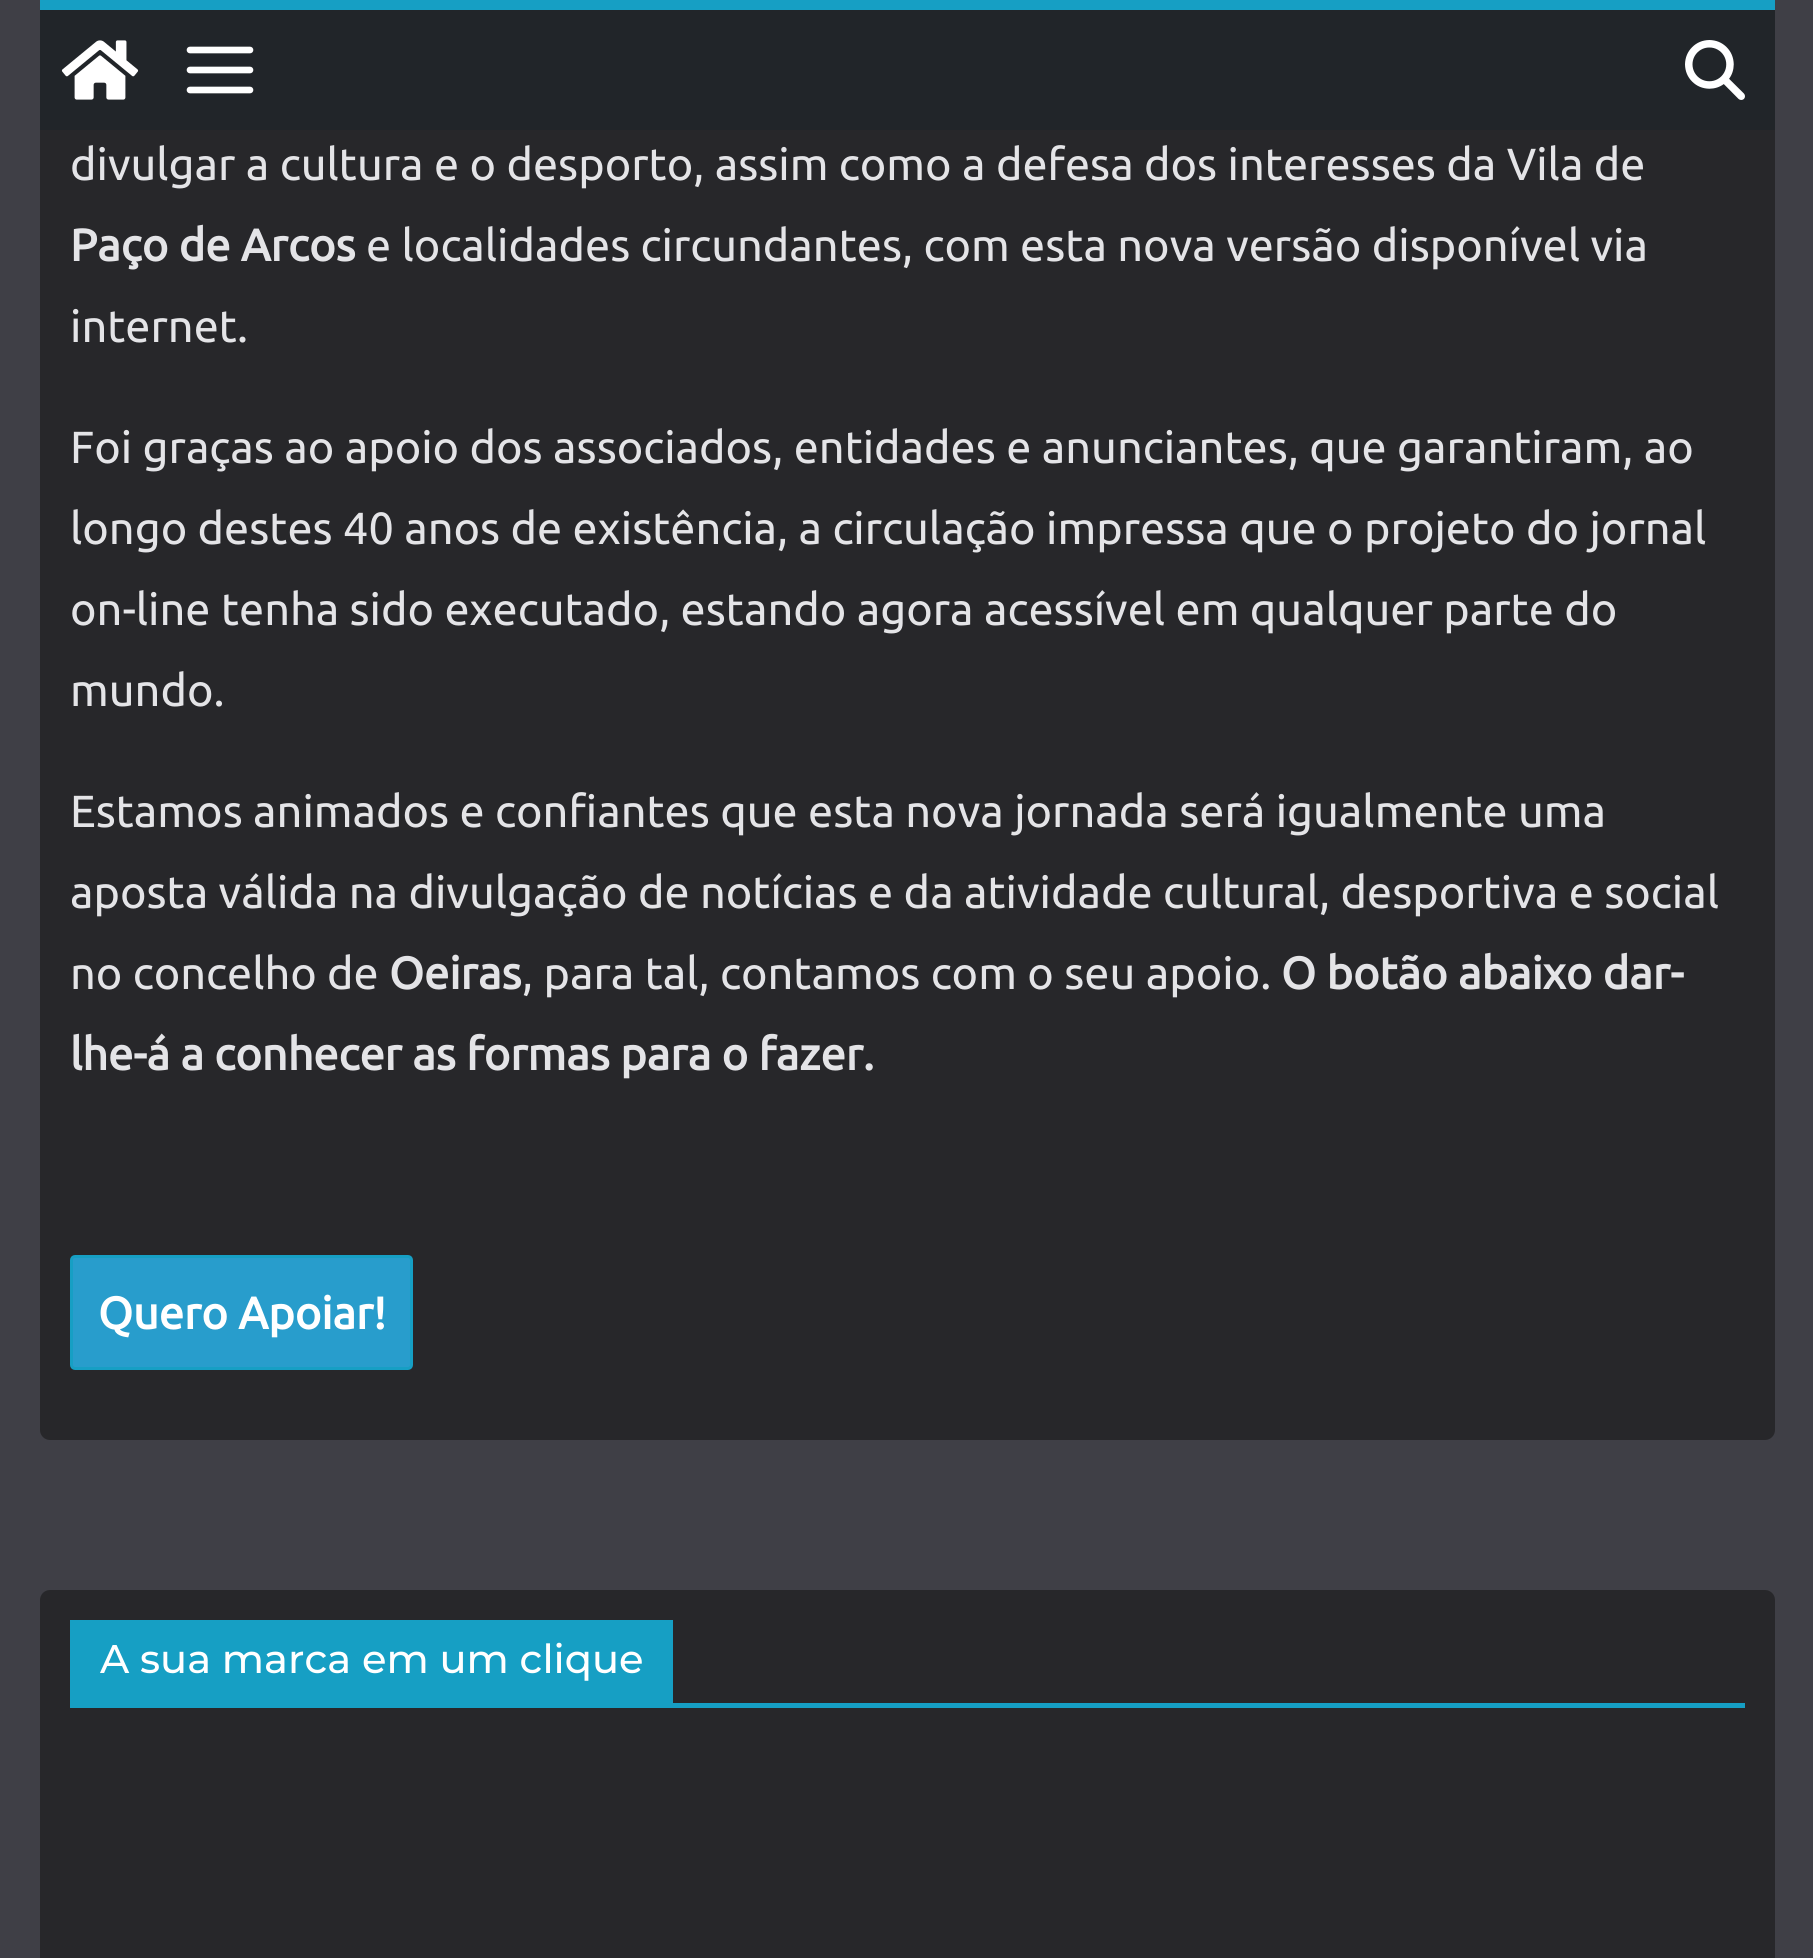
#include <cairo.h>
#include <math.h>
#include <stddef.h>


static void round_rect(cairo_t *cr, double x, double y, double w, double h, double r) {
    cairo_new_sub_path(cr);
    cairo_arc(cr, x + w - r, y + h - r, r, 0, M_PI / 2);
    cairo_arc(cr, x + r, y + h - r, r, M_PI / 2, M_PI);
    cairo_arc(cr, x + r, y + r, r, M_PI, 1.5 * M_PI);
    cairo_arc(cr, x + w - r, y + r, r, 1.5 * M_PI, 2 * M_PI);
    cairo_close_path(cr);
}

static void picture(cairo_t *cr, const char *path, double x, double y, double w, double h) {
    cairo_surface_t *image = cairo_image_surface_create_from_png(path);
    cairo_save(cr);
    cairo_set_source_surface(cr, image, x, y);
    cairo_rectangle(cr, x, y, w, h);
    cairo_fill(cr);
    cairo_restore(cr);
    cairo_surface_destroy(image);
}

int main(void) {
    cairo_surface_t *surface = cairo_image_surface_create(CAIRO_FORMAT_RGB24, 1813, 1958);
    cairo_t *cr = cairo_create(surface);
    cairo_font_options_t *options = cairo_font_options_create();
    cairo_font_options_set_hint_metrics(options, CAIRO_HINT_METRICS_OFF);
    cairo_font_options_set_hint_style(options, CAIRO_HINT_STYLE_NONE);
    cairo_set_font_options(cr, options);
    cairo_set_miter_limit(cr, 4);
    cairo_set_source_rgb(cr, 0.247, 0.247, 0.275);
    cairo_paint(cr);
    cairo_set_source_rgb(cr, 0.153, 0.153, 0.165);
    round_rect(cr, 40, -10, 1735, 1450, 10);
    cairo_fill(cr);
    cairo_set_source_rgb(cr, 0.129, 0.145, 0.161);
    cairo_rectangle(cr, 40, 10, 1735, 120);
    cairo_fill(cr);
    cairo_set_source_rgb(cr, 0.086, 0.624, 0.769);
    cairo_rectangle(cr, 40, 0, 1735, 10);
    cairo_fill(cr);
    picture(cr, "img1.png", 61, 40, 78, 60);
    picture(cr, "img2.png", 186, 46, 68, 48);
    picture(cr, "img3.png", 1685, 40, 60, 60);
    cairo_select_font_face(cr, "Ubuntu", CAIRO_FONT_SLANT_NORMAL, CAIRO_FONT_WEIGHT_NORMAL);
    cairo_set_font_size(cr, 45);
    cairo_set_source_rgb(cr, 0.894, 0.894, 0.906);
    cairo_move_to(cr, 70, 180);
    cairo_show_text(cr, "divulgar a cultura e o desporto, assim como a defesa dos interesses da Vila de");
    cairo_select_font_face(cr, "Ubuntu", CAIRO_FONT_SLANT_NORMAL, CAIRO_FONT_WEIGHT_BOLD);
    cairo_move_to(cr, 70, 261);
    cairo_show_text(cr, "Paço de Arcos");
    cairo_select_font_face(cr, "Ubuntu", CAIRO_FONT_SLANT_NORMAL, CAIRO_FONT_WEIGHT_NORMAL);
    cairo_move_to(cr, 366, 261);
    cairo_show_text(cr, "e localidades circundantes, com esta nova versão disponível via");
    cairo_move_to(cr, 70, 342);
    cairo_show_text(cr, "internet.");
    cairo_move_to(cr, 70, 463);
    cairo_show_text(cr, "Foi graças ao apoio dos associados, entidades e anunciantes, que garantiram, ao");
    cairo_move_to(cr, 70, 544);
    cairo_show_text(cr, "longo destes 40 anos de existência, a circulação impressa que o projeto do jornal");
    cairo_move_to(cr, 70, 625);
    cairo_show_text(cr, "on-line tenha sido executado, estando agora acessível em qualquer parte do");
    cairo_move_to(cr, 70, 706);
    cairo_show_text(cr, "mundo.");
    cairo_move_to(cr, 70, 827);
    cairo_show_text(cr, "Estamos animados e confiantes que esta nova jornada será igualmente uma");
    cairo_move_to(cr, 70, 908);
    cairo_show_text(cr, "aposta válida na divulgação de notícias e da atividade cultural, desportiva e social");
    cairo_move_to(cr, 70, 989);
    cairo_show_text(cr, "no concelho de");
    cairo_select_font_face(cr, "Ubuntu", CAIRO_FONT_SLANT_NORMAL, CAIRO_FONT_WEIGHT_BOLD);
    cairo_move_to(cr, 389, 989);
    cairo_show_text(cr, "Oeiras");
    cairo_select_font_face(cr, "Ubuntu", CAIRO_FONT_SLANT_NORMAL, CAIRO_FONT_WEIGHT_NORMAL);
    cairo_move_to(cr, 522, 989);
    cairo_show_text(cr, ", para tal, contamos com o seu apoio.");
    cairo_select_font_face(cr, "Ubuntu", CAIRO_FONT_SLANT_NORMAL, CAIRO_FONT_WEIGHT_BOLD);
    cairo_move_to(cr, 1281, 989);
    cairo_show_text(cr, "O botão abaixo dar-");
    cairo_move_to(cr, 70, 1070);
    cairo_show_text(cr, "lhe-á a conhecer as formas para o fazer.");
    cairo_set_source_rgb(cr, 0.157, 0.616, 0.8);
    round_rect(cr, 71.5, 1256.5, 340, 112, 3.5);
    cairo_fill_preserve(cr);
    cairo_set_source_rgb(cr, 0.086, 0.624, 0.769);
    cairo_set_line_width(cr, 3);
    cairo_stroke(cr);
    cairo_set_source_rgb(cr, 1, 1, 1);
    cairo_move_to(cr, 98, 1329);
    cairo_show_text(cr, "Quero Apoiar!");
    cairo_set_source_rgb(cr, 0.153, 0.153, 0.165);
    round_rect(cr, 40, 1590, 1735, 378, 10);
    cairo_fill(cr);
    cairo_set_source_rgb(cr, 0.086, 0.624, 0.769);
    cairo_rectangle(cr, 70, 1703, 1675, 5);
    cairo_fill(cr);
    cairo_rectangle(cr, 70, 1620, 603, 83);
    cairo_fill(cr);
    cairo_select_font_face(cr, "Montserrat Thin", CAIRO_FONT_SLANT_NORMAL, CAIRO_FONT_WEIGHT_NORMAL);
    cairo_set_font_size(cr, 40);
    cairo_set_source_rgb(cr, 1, 1, 1);
    cairo_move_to(cr, 100, 1673);
    cairo_show_text(cr, "A sua marca em um clique");
    cairo_surface_write_to_png(surface, "page.png");
    cairo_font_options_destroy(options);
    cairo_destroy(cr);
    cairo_surface_destroy(surface);
    return 0;
}
